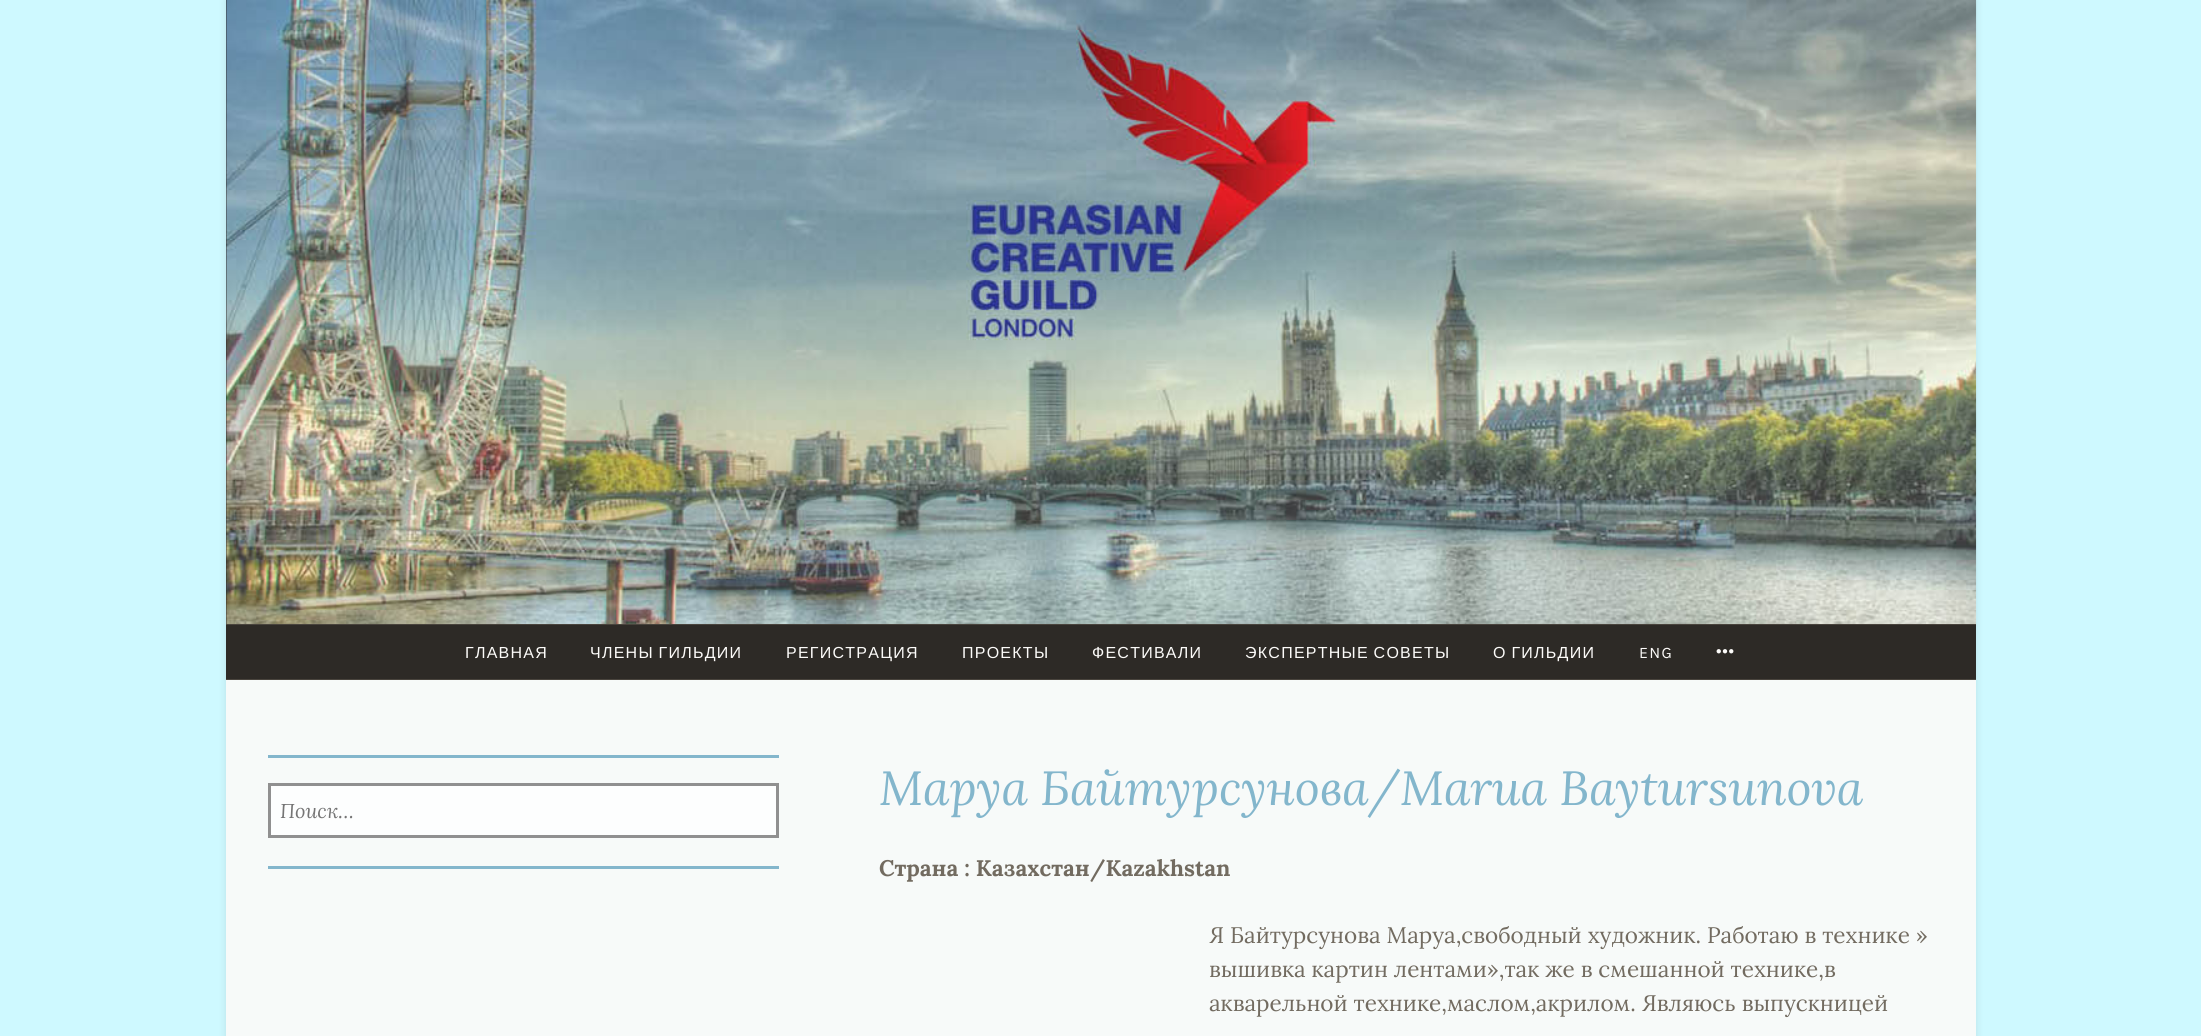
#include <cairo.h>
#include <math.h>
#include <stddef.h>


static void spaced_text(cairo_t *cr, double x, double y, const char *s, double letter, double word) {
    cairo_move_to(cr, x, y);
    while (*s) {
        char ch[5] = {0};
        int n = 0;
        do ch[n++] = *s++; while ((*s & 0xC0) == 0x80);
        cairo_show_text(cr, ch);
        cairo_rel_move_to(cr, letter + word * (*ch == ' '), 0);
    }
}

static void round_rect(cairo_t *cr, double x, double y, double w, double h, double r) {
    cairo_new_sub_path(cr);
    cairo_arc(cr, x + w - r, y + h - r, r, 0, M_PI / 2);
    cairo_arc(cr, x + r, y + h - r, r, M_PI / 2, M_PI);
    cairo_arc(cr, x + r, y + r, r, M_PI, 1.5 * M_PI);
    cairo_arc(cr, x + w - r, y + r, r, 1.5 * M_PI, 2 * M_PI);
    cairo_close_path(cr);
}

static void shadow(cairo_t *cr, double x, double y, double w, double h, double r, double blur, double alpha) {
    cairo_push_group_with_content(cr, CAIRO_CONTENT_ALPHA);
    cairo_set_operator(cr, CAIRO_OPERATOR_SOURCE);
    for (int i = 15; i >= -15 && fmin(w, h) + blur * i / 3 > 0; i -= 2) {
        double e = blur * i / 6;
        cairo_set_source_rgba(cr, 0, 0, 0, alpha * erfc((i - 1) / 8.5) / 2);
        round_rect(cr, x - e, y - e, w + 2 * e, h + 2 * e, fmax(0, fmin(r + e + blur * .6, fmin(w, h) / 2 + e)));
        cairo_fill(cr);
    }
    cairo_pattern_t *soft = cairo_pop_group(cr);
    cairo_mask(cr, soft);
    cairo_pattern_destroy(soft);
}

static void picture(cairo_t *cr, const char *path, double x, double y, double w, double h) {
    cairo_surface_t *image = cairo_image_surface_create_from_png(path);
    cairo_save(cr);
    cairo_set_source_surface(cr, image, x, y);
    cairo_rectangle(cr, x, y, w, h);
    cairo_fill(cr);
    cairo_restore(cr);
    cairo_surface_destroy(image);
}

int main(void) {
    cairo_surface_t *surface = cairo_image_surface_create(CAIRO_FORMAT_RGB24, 2201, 1036);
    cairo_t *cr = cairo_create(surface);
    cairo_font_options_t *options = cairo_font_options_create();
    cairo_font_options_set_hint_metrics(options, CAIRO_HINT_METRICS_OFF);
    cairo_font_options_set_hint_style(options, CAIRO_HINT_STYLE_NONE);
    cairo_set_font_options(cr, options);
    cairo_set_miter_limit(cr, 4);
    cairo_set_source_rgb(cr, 0.808, 0.973, 1);
    cairo_paint(cr);
    cairo_save(cr);
    cairo_set_fill_rule(cr, CAIRO_FILL_RULE_EVEN_ODD);
    cairo_new_path(cr);
    cairo_move_to(cr, 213, 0);
    cairo_line_to(cr, 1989, 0);
    cairo_line_to(cr, 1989, 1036);
    cairo_line_to(cr, 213, 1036);
    cairo_close_path(cr);
    cairo_move_to(cr, 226, 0);
    cairo_line_to(cr, 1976, 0);
    cairo_line_to(cr, 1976, 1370);
    cairo_line_to(cr, 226, 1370);
    cairo_close_path(cr);
    cairo_clip(cr);
    cairo_set_source_rgb(cr, 0, 0, 0);
    shadow(cr, 226, 0, 1750, 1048, 0, 4, 0.1);
    cairo_restore(cr);
    cairo_set_source_rgba(cr, 0.988, 0.984, 0.976, 0.9);
    cairo_rectangle(cr, 226, 680, 1750, 356);
    cairo_fill(cr);
    cairo_set_source_rgb(cr, 0.176, 0.165, 0.149);
    cairo_rectangle(cr, 226, 0, 1, 624);
    cairo_fill(cr);
    picture(cr, "img1.png", 226, 0, 1751, 626);
    cairo_rectangle(cr, 226, 625, 1750, 54);
    cairo_fill(cr);
    cairo_set_source_rgb(cr, 0.286, 0.267, 0.239);
    cairo_rectangle(cr, 226, 624, 1750, 1);
    cairo_fill(cr);
    cairo_rectangle(cr, 226, 679, 1750, 1);
    cairo_fill(cr);
    cairo_select_font_face(cr, "Liberation Sans", CAIRO_FONT_SLANT_NORMAL, CAIRO_FONT_WEIGHT_NORMAL);
    cairo_set_font_size(cr, 16);
    cairo_set_source_rgb(cr, 0.988, 0.984, 0.976);
    spaced_text(cr, 465, 658, "ГЛАВНАЯ", 1.25, 0);
    spaced_text(cr, 590, 658, "ЧЛЕНЫ ГИЛЬДИИ", 1.25, -1);
    spaced_text(cr, 786, 658, "РЕГИСТРАЦИЯ", 1.25, 0);
    spaced_text(cr, 962, 658, "ПРОЕКТЫ", 1.25, 0);
    spaced_text(cr, 1092, 658, "ФЕСТИВАЛИ", 1.25, 0);
    spaced_text(cr, 1245, 658, "ЭКСПЕРТНЫЕ СОВЕТЫ", 1.25, -1);
    spaced_text(cr, 1493, 658, "О ГИЛЬДИИ", 1.25, -1);
    cairo_select_font_face(cr, "Karla", CAIRO_FONT_SLANT_NORMAL, CAIRO_FONT_WEIGHT_NORMAL);
    spaced_text(cr, 1639, 658, "ENG", 1.25, 0);
    picture(cr, "img2.png", 1716, 649, 18, 5);
    cairo_set_source_rgb(cr, 0.514, 0.714, 0.8);
    cairo_rectangle(cr, 268, 755, 511, 3);
    cairo_fill(cr);
    cairo_set_source_rgb(cr, 0.992, 0.996, 0.996);
    cairo_rectangle(cr, 269.5, 784.5, 508, 52);
    cairo_fill_preserve(cr);
    cairo_set_source_rgb(cr, 0.565, 0.565, 0.565);
    cairo_set_line_width(cr, 3);
    cairo_stroke(cr);
    cairo_select_font_face(cr, "Lora", CAIRO_FONT_SLANT_ITALIC, CAIRO_FONT_WEIGHT_NORMAL);
    cairo_set_font_size(cr, 20);
    cairo_set_source_rgb(cr, 0.459, 0.459, 0.459);
    cairo_move_to(cr, 280, 818);
    cairo_show_text(cr, "Поиск…");
    cairo_set_source_rgb(cr, 0.514, 0.714, 0.8);
    cairo_rectangle(cr, 268, 866, 511, 3);
    cairo_fill(cr);
    cairo_set_font_size(cr, 48);
    cairo_move_to(cr, 879, 805);
    cairo_show_text(cr, "Маруа Байтурсунова/Marua Baytursunova");
    cairo_select_font_face(cr, "Lora", CAIRO_FONT_SLANT_NORMAL, CAIRO_FONT_WEIGHT_BOLD);
    cairo_set_font_size(cr, 22.5);
    cairo_set_source_rgb(cr, 0.447, 0.42, 0.376);
    cairo_move_to(cr, 879, 876);
    cairo_show_text(cr, "Страна : Казахстан/Kazakhstan");
    cairo_select_font_face(cr, "Lora", CAIRO_FONT_SLANT_NORMAL, CAIRO_FONT_WEIGHT_NORMAL);
    cairo_move_to(cr, 1209, 943);
    cairo_show_text(cr, "Я Байтурсунова Маруа,свободный художник. Работаю в технике »");
    cairo_move_to(cr, 1209, 977);
    cairo_show_text(cr, "вышивка картин лентами»,так же в смешанной технике,в");
    cairo_move_to(cr, 1209, 1011);
    cairo_show_text(cr, "акварельной технике,маслом,акрилом. Являюсь выпускницей");
    cairo_surface_write_to_png(surface, "page.png");
    cairo_font_options_destroy(options);
    cairo_destroy(cr);
    cairo_surface_destroy(surface);
    return 0;
}
